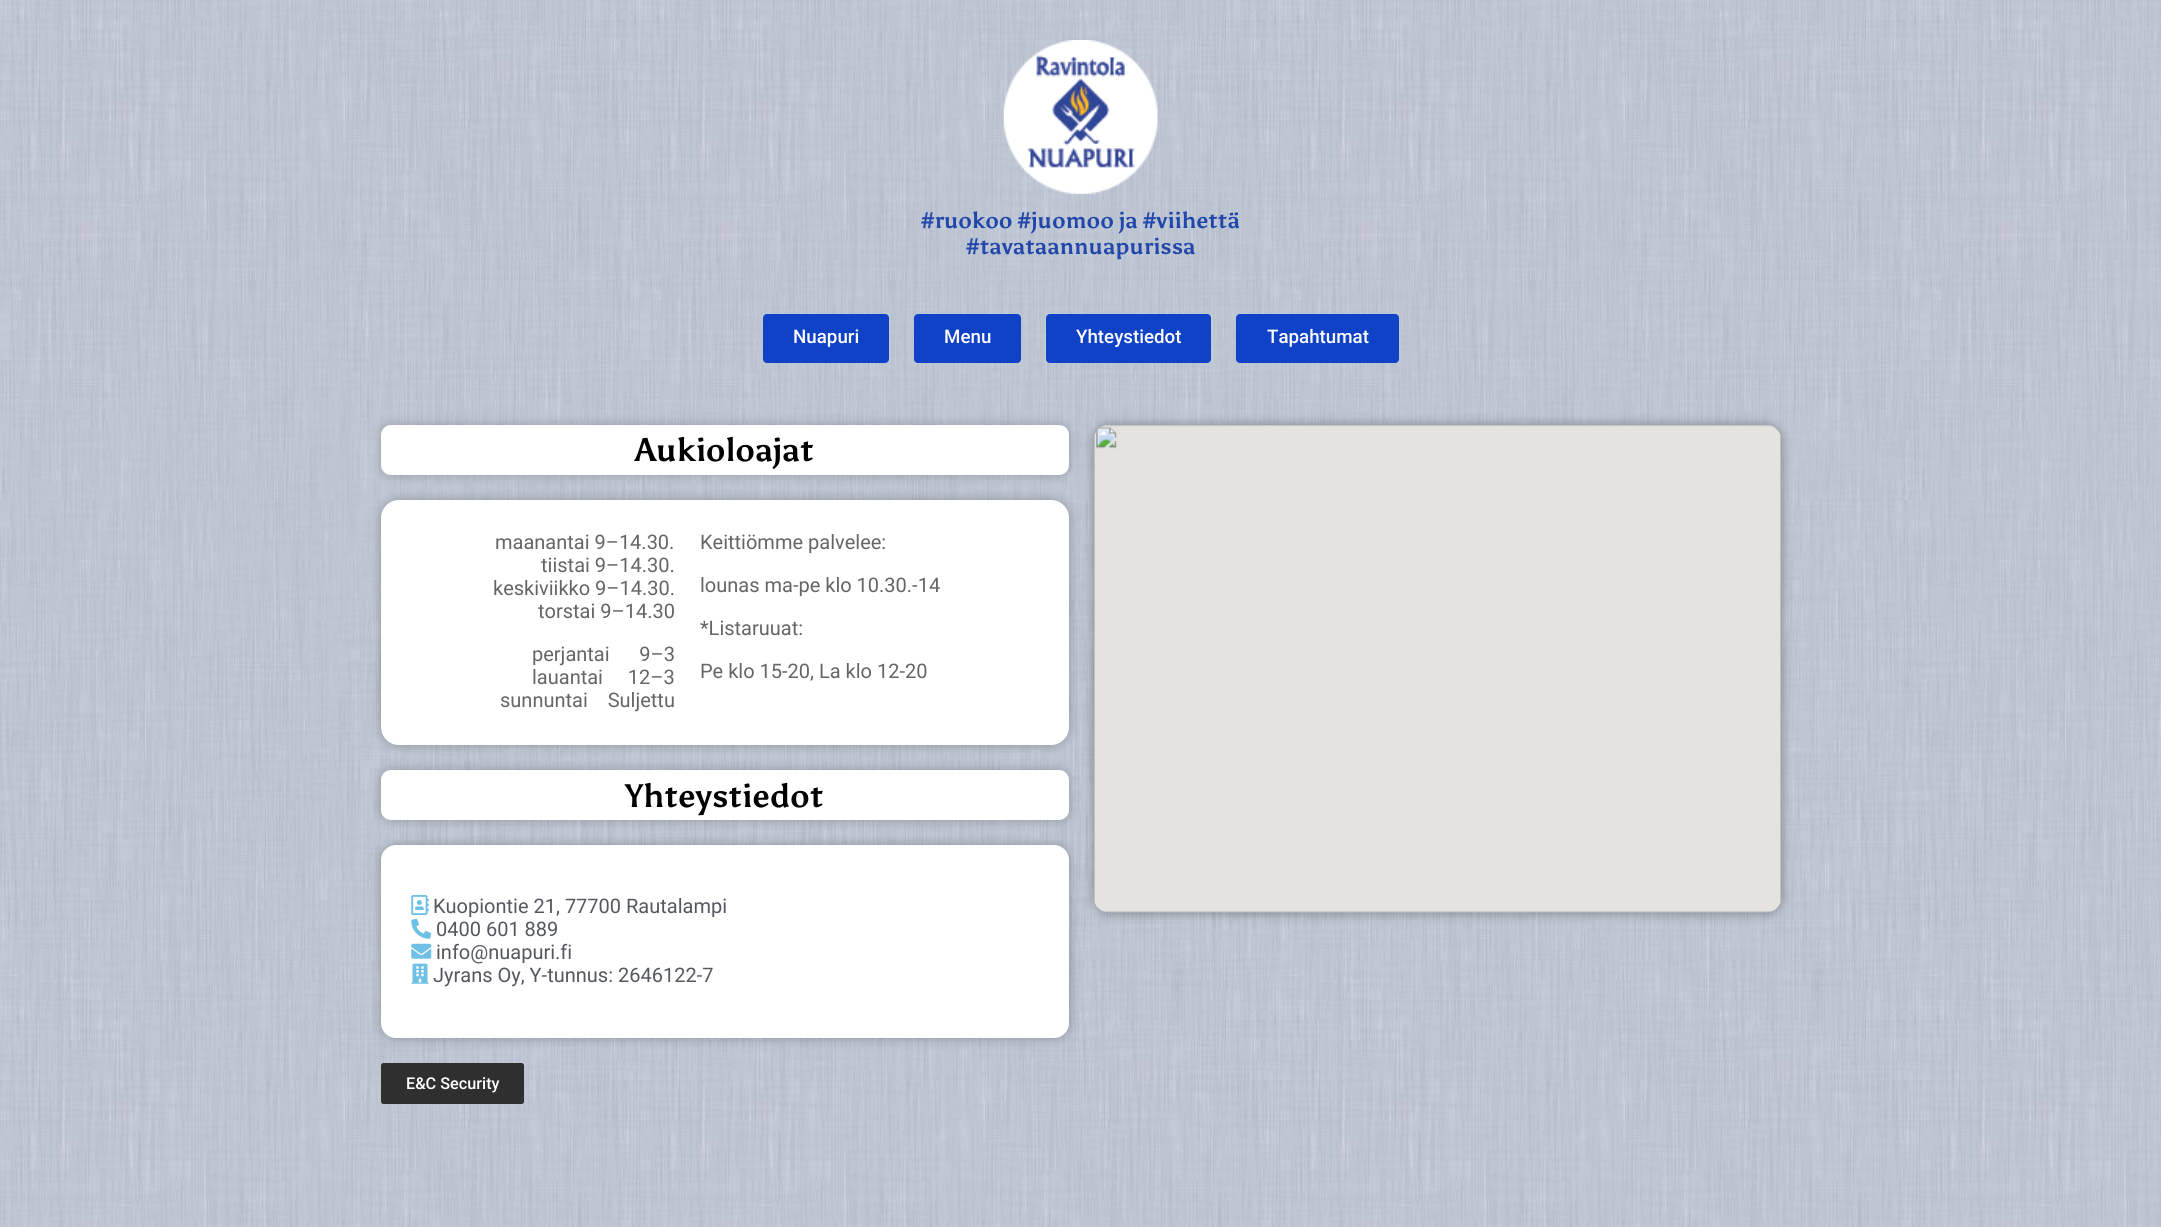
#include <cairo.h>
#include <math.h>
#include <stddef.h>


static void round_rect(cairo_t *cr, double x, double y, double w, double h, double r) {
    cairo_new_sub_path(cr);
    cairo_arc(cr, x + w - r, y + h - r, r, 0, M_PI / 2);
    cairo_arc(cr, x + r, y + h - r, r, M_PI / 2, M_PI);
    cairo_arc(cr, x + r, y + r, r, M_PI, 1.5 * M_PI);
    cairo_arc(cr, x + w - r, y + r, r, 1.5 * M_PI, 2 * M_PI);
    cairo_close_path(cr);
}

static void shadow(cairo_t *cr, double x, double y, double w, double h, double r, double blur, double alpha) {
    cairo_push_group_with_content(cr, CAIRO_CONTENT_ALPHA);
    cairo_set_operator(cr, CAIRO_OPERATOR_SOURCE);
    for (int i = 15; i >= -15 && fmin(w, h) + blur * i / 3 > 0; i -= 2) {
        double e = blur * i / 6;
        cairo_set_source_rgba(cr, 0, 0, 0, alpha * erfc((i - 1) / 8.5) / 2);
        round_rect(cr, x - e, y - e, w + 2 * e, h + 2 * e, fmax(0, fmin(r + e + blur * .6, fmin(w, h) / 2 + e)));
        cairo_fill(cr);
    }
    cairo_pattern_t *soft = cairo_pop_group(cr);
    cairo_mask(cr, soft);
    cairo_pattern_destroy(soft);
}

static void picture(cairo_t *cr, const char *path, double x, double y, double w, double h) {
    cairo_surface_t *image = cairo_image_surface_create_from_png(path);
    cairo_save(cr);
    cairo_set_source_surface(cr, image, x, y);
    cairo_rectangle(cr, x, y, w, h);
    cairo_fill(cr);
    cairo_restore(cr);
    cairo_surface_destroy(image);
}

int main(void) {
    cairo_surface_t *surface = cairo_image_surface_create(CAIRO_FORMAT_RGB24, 2161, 1227);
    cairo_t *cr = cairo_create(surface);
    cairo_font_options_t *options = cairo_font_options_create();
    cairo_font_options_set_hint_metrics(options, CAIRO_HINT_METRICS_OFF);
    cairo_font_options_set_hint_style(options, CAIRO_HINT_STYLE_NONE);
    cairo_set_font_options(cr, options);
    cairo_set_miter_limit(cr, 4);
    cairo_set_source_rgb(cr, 1, 1, 1);
    cairo_paint(cr);
    picture(cr, "img1.png", 0, 0, 2161, 1227);
    picture(cr, "img2.png", 1003, 40, 155, 154);
    cairo_select_font_face(cr, "Asul", CAIRO_FONT_SLANT_NORMAL, CAIRO_FONT_WEIGHT_BOLD);
    cairo_set_font_size(cr, 22.5);
    cairo_set_source_rgb(cr, 0.133, 0.278, 0.667);
    cairo_move_to(cr, 921, 228);
    cairo_show_text(cr, "#ruokoo #juomoo ja #viihettä");
    cairo_move_to(cr, 966, 254);
    cairo_show_text(cr, "#tavataannuapurissa");
    cairo_set_source_rgb(cr, 0.063, 0.259, 0.784);
    round_rect(cr, 763, 314, 126, 49, 4);
    cairo_fill(cr);
    cairo_select_font_face(cr, "Roboto Medium", CAIRO_FONT_SLANT_NORMAL, CAIRO_FONT_WEIGHT_NORMAL);
    cairo_set_font_size(cr, 18.75);
    cairo_set_source_rgb(cr, 1, 1, 1);
    cairo_move_to(cr, 793, 343);
    cairo_show_text(cr, "Nuapuri");
    cairo_set_source_rgb(cr, 0.063, 0.259, 0.784);
    round_rect(cr, 914, 314, 107, 49, 4);
    cairo_fill(cr);
    cairo_set_source_rgb(cr, 1, 1, 1);
    cairo_move_to(cr, 944, 343);
    cairo_show_text(cr, "Menu");
    cairo_set_source_rgb(cr, 0.063, 0.259, 0.784);
    round_rect(cr, 1046, 314, 165, 49, 4);
    cairo_fill(cr);
    cairo_set_source_rgb(cr, 1, 1, 1);
    cairo_move_to(cr, 1076, 343);
    cairo_show_text(cr, "Yhteystiedot");
    cairo_set_source_rgb(cr, 0.063, 0.259, 0.784);
    round_rect(cr, 1236, 314, 163, 49, 4);
    cairo_fill(cr);
    cairo_set_source_rgb(cr, 1, 1, 1);
    cairo_move_to(cr, 1267, 343);
    cairo_show_text(cr, "Tapahtumat");
    cairo_set_source_rgb(cr, 0, 0, 0);
    shadow(cr, 381, 425, 688, 50, 10, 6, 0.22);
    cairo_set_source_rgb(cr, 1, 1, 1);
    round_rect(cr, 381, 425, 688, 50, 10);
    cairo_fill(cr);
    cairo_select_font_face(cr, "Asul", CAIRO_FONT_SLANT_NORMAL, CAIRO_FONT_WEIGHT_BOLD);
    cairo_set_font_size(cr, 32.5);
    cairo_set_source_rgb(cr, 0, 0, 0);
    cairo_move_to(cr, 635, 461);
    cairo_show_text(cr, "Aukioloajat");
    cairo_set_source_rgb(cr, 0, 0, 0);
    shadow(cr, 381, 500, 688, 245, 18, 6, 0.26);
    cairo_set_source_rgb(cr, 1, 1, 1);
    round_rect(cr, 381, 500, 688, 245, 18);
    cairo_fill(cr);
    cairo_select_font_face(cr, "Roboto", CAIRO_FONT_SLANT_NORMAL, CAIRO_FONT_WEIGHT_NORMAL);
    cairo_set_font_size(cr, 20);
    cairo_set_source_rgb(cr, 0.396, 0.396, 0.396);
    cairo_move_to(cr, 495, 549);
    cairo_show_text(cr, "maanantai 9–14.30.");
    cairo_move_to(cr, 541, 572);
    cairo_show_text(cr, "tiistai 9–14.30.");
    cairo_move_to(cr, 493, 595);
    cairo_show_text(cr, "keskiviikko 9–14.30.");
    cairo_move_to(cr, 538, 618);
    cairo_show_text(cr, "torstai 9–14.30");
    cairo_move_to(cr, 532, 661);
    cairo_show_text(cr, "perjantai      9–3");
    cairo_move_to(cr, 532, 684);
    cairo_show_text(cr, "lauantai     12–3");
    cairo_move_to(cr, 500, 707);
    cairo_show_text(cr, "sunnuntai    Suljettu");
    cairo_move_to(cr, 700, 549);
    cairo_show_text(cr, "Keittiömme palvelee:");
    cairo_move_to(cr, 700, 592);
    cairo_show_text(cr, "lounas ma-pe klo 10.30.-14");
    cairo_move_to(cr, 700, 635);
    cairo_show_text(cr, "*Listaruuat:");
    cairo_move_to(cr, 700, 678);
    cairo_show_text(cr, "Pe klo 15-20, La klo 12-20");
    cairo_set_source_rgb(cr, 0, 0, 0);
    shadow(cr, 381, 770, 688, 50, 10, 6, 0.25);
    cairo_set_source_rgb(cr, 1, 1, 1);
    round_rect(cr, 381, 770, 688, 50, 10);
    cairo_fill(cr);
    cairo_select_font_face(cr, "Asul", CAIRO_FONT_SLANT_NORMAL, CAIRO_FONT_WEIGHT_BOLD);
    cairo_set_font_size(cr, 32.5);
    cairo_set_source_rgb(cr, 0, 0, 0);
    cairo_move_to(cr, 625, 807);
    cairo_show_text(cr, "Yhteystiedot");
    cairo_set_source_rgb(cr, 0, 0, 0);
    shadow(cr, 381, 845, 688, 193, 15, 6, 0.27);
    cairo_set_source_rgb(cr, 1, 1, 1);
    round_rect(cr, 381, 845, 688, 193, 15);
    cairo_fill(cr);
    picture(cr, "img3.png", 411, 895, 18, 20);
    cairo_select_font_face(cr, "Roboto", CAIRO_FONT_SLANT_NORMAL, CAIRO_FONT_WEIGHT_NORMAL);
    cairo_set_font_size(cr, 20);
    cairo_set_source_rgb(cr, 0.329, 0.349, 0.373);
    cairo_move_to(cr, 433, 913);
    cairo_show_text(cr, "Kuopiontie 21, 77700 Rautalampi");
    picture(cr, "img4.png", 411, 918, 21, 21);
    cairo_move_to(cr, 436, 936);
    cairo_show_text(cr, "0400 601 889");
    picture(cr, "img5.png", 411, 943, 21, 16);
    cairo_move_to(cr, 436, 959);
    cairo_show_text(cr, "info@nuapuri.fi");
    picture(cr, "img6.png", 411, 963, 18, 21);
    cairo_move_to(cr, 433, 982);
    cairo_show_text(cr, "Jyrans Oy, Y-tunnus: 2646122-7");
    cairo_set_source_rgb(cr, 0.184, 0.184, 0.184);
    round_rect(cr, 381, 1063, 143, 41, 2.5);
    cairo_fill(cr);
    cairo_select_font_face(cr, "Roboto Medium", CAIRO_FONT_SLANT_NORMAL, CAIRO_FONT_WEIGHT_NORMAL);
    cairo_set_font_size(cr, 16.25);
    cairo_set_source_rgb(cr, 1, 1, 1);
    cairo_move_to(cr, 406, 1089);
    cairo_show_text(cr, "E&C Security");
    cairo_set_source_rgb(cr, 0, 0, 0);
    shadow(cr, 1094, 425, 687, 488, 15, 6, 0.34);
    picture(cr, "img7.png", 1094, 425, 687, 488);
    cairo_surface_write_to_png(surface, "page.png");
    cairo_font_options_destroy(options);
    cairo_destroy(cr);
    cairo_surface_destroy(surface);
    return 0;
}
